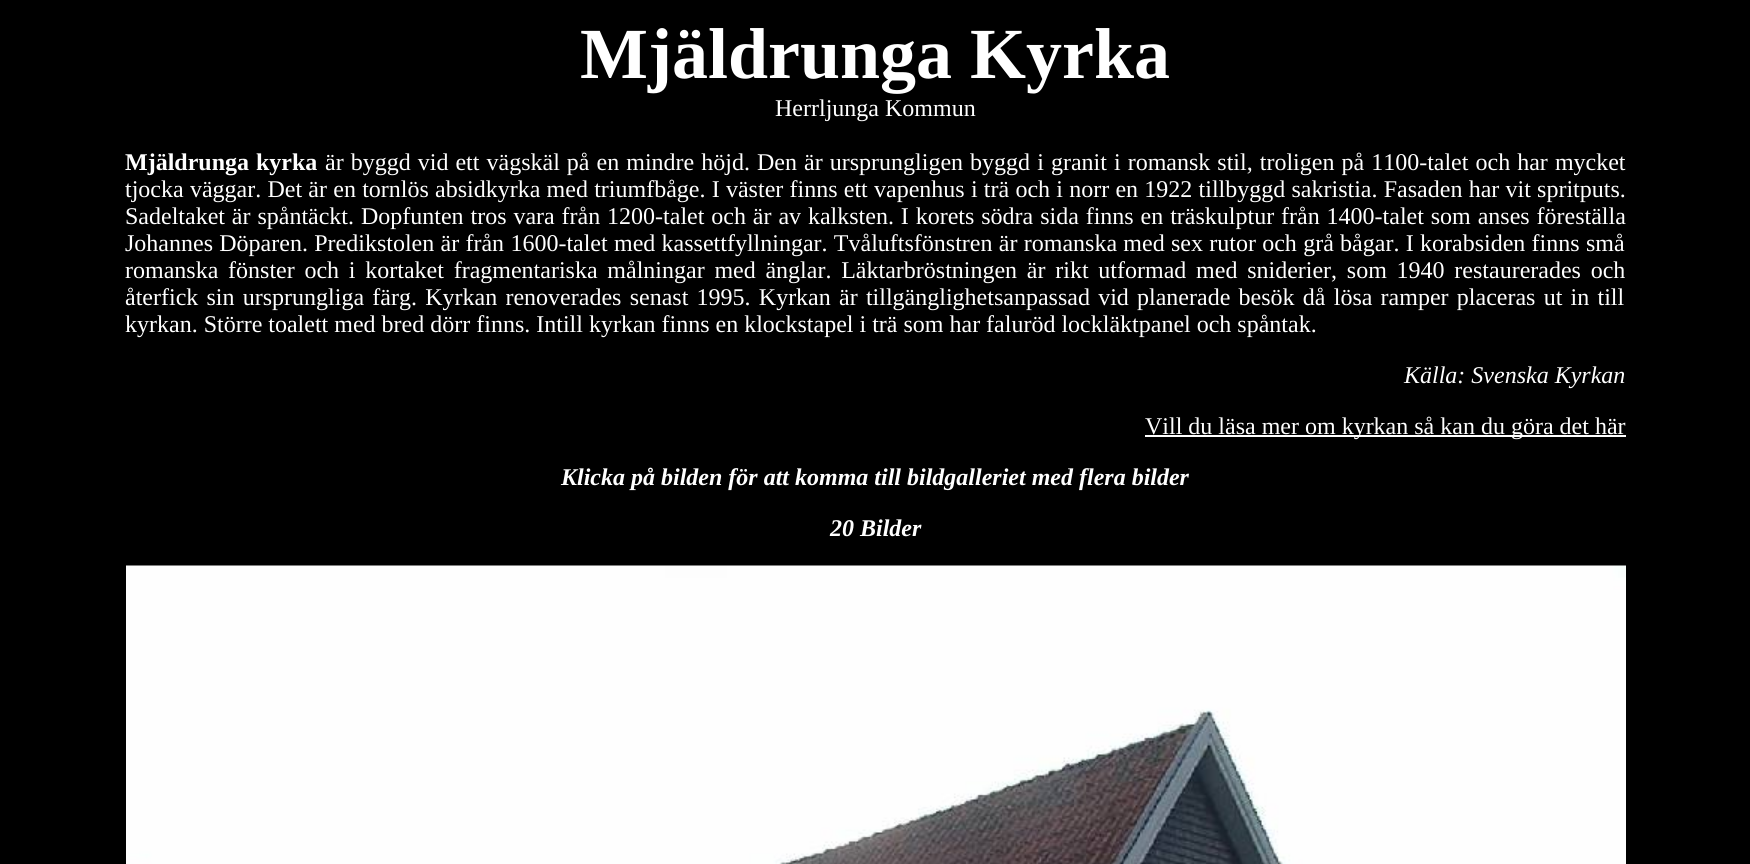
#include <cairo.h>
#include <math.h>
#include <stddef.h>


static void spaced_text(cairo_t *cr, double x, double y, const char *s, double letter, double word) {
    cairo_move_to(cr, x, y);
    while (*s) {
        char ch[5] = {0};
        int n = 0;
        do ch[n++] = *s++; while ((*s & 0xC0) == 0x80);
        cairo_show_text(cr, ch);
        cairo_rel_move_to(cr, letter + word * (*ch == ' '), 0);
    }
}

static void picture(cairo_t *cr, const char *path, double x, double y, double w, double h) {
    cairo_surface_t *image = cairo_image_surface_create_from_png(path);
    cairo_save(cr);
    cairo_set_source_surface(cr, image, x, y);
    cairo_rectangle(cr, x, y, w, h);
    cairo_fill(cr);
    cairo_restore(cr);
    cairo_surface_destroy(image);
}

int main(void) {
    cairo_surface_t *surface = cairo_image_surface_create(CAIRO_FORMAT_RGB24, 1750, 864);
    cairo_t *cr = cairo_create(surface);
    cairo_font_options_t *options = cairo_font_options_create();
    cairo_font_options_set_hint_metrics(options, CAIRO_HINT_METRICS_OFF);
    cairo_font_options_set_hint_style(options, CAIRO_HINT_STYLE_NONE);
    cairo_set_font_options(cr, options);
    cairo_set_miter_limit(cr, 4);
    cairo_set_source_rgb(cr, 0, 0, 0);
    cairo_paint(cr);
    cairo_select_font_face(cr, "Liberation Serif", CAIRO_FONT_SLANT_NORMAL, CAIRO_FONT_WEIGHT_BOLD);
    cairo_set_font_size(cr, 72);
    cairo_set_source_rgb(cr, 1, 1, 1);
    cairo_move_to(cr, 580, 78);
    cairo_show_text(cr, "Mjäldrunga Kyrka");
    cairo_select_font_face(cr, "Liberation Serif", CAIRO_FONT_SLANT_NORMAL, CAIRO_FONT_WEIGHT_NORMAL);
    cairo_set_font_size(cr, 24);
    cairo_move_to(cr, 775, 116);
    cairo_show_text(cr, "Herrljunga Kommun");
    cairo_select_font_face(cr, "Liberation Serif", CAIRO_FONT_SLANT_NORMAL, CAIRO_FONT_WEIGHT_BOLD);
    spaced_text(cr, 125, 170, "Mjäldrunga kyrka", 0, 1);
    cairo_select_font_face(cr, "Liberation Serif", CAIRO_FONT_SLANT_NORMAL, CAIRO_FONT_WEIGHT_NORMAL);
    spaced_text(cr, 325, 170, "är byggd vid ett vägskäl på en mindre höjd. Den är ursprungligen byggd i granit i romansk stil, troligen på 1100-talet och har mycket", 0, 1.05);
    spaced_text(cr, 125, 197, "tjocka väggar. Det är en tornlös absidkyrka med triumfbåge. I väster finns ett vapenhus i trä och i norr en 1922 tillbyggd sakristia. Fasaden har vit spritputs.", 0, 0.25);
    spaced_text(cr, 125, 224, "Sadeltaket är spåntäckt. Dopfunten tros vara från 1200-talet och är av kalksten. I korets södra sida finns en träskulptur från 1400-talet som anses föreställa", 0, 0.9);
    spaced_text(cr, 125, 251, "Johannes Döparen. Predikstolen är från 1600-talet med kassettfyllningar. Tvåluftsfönstren är romanska med sex rutor och grå bågar. I korabsiden finns små", 0, 0.3);
    spaced_text(cr, 125, 278, "romanska fönster och i kortaket fragmentariska målningar med änglar. Läktarbröstningen är rikt utformad med sniderier, som 1940 restaurerades och", 0, 3.75);
    spaced_text(cr, 125, 305, "återfick sin ursprungliga färg. Kyrkan renoverades senast 1995. Kyrkan är tillgänglighetsanpassad vid planerade besök då lösa ramper placeras ut in till", 0, 2.25);
    cairo_move_to(cr, 125, 332);
    cairo_show_text(cr, "kyrkan. Större toalett med bred dörr finns. Intill kyrkan finns en klockstapel i trä som har faluröd lockläktpanel och spåntak.");
    cairo_select_font_face(cr, "Liberation Serif", CAIRO_FONT_SLANT_ITALIC, CAIRO_FONT_WEIGHT_NORMAL);
    cairo_move_to(cr, 1404, 383);
    cairo_show_text(cr, "Källa: Svenska Kyrkan");
    cairo_rectangle(cr, 1145, 435, 481, 2);
    cairo_fill(cr);
    cairo_select_font_face(cr, "Liberation Serif", CAIRO_FONT_SLANT_NORMAL, CAIRO_FONT_WEIGHT_NORMAL);
    cairo_move_to(cr, 1145, 434);
    cairo_show_text(cr, "Vill du läsa mer om kyrkan så kan du göra det här");
    cairo_select_font_face(cr, "Liberation Serif", CAIRO_FONT_SLANT_ITALIC, CAIRO_FONT_WEIGHT_BOLD);
    cairo_move_to(cr, 561, 485);
    cairo_show_text(cr, "Klicka på bilden för att komma till bildgalleriet med flera bilder");
    cairo_move_to(cr, 830, 536);
    cairo_show_text(cr, "20 Bilder");
    picture(cr, "img1.png", 126, 565, 1500, 299);
    cairo_surface_write_to_png(surface, "page.png");
    cairo_font_options_destroy(options);
    cairo_destroy(cr);
    cairo_surface_destroy(surface);
    return 0;
}
